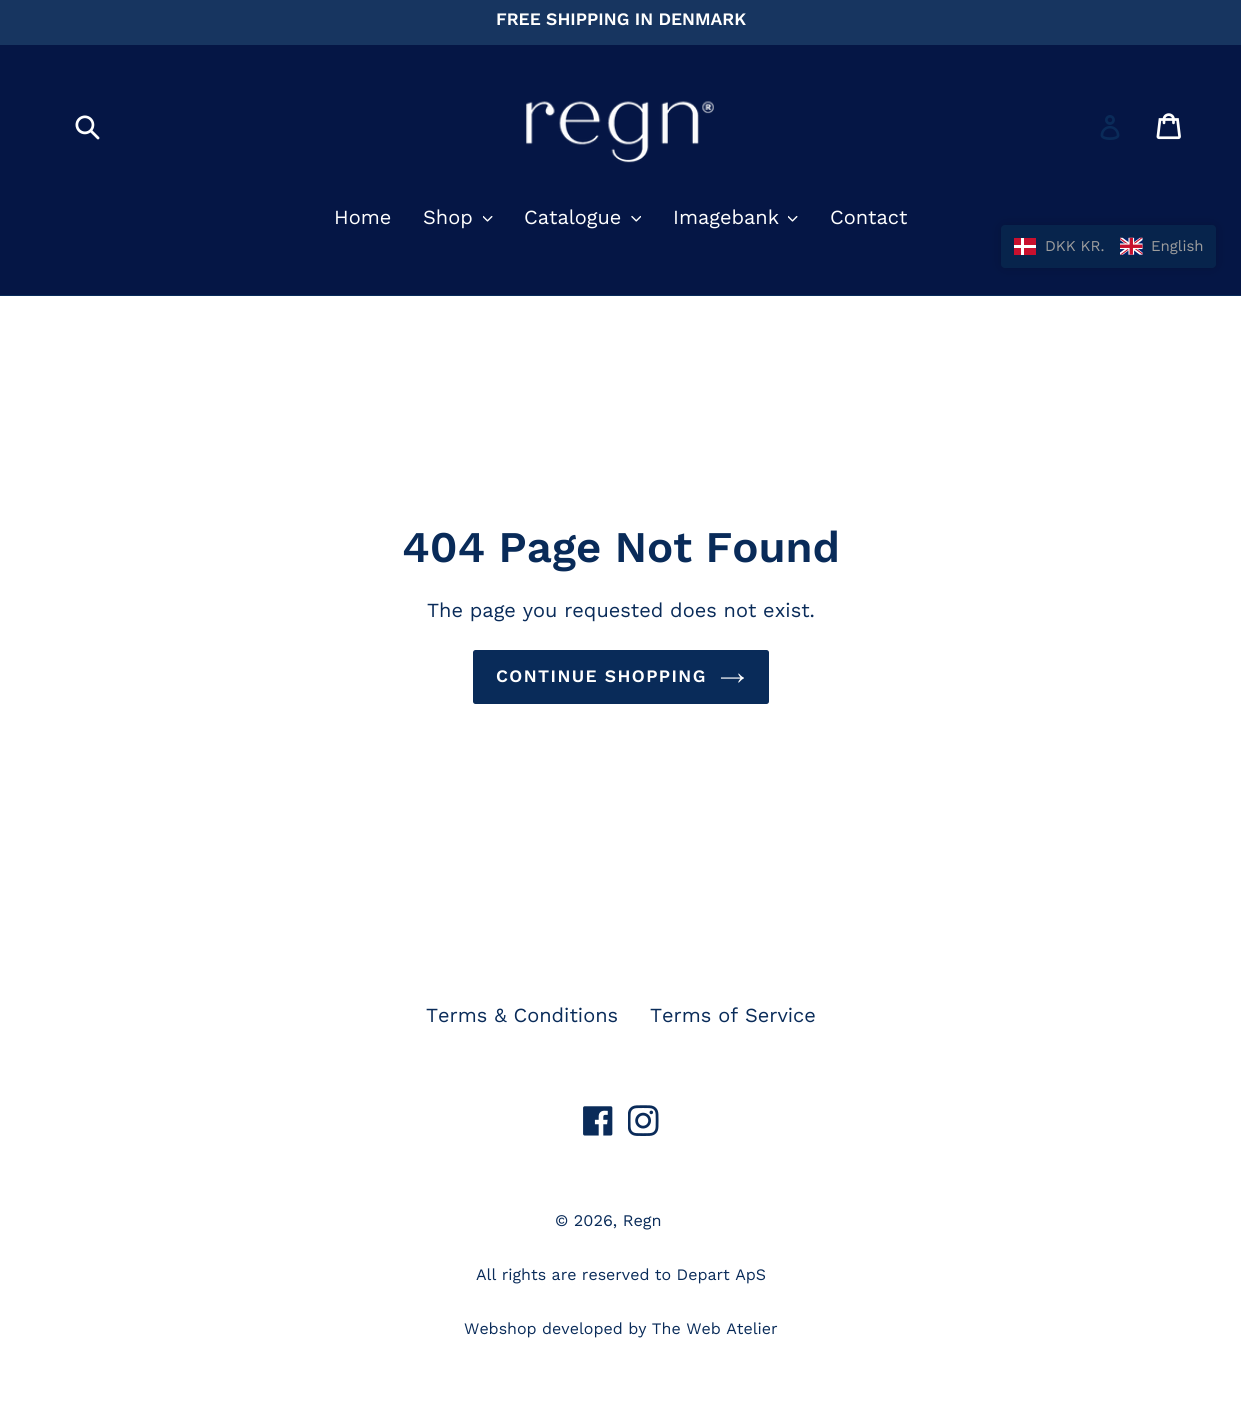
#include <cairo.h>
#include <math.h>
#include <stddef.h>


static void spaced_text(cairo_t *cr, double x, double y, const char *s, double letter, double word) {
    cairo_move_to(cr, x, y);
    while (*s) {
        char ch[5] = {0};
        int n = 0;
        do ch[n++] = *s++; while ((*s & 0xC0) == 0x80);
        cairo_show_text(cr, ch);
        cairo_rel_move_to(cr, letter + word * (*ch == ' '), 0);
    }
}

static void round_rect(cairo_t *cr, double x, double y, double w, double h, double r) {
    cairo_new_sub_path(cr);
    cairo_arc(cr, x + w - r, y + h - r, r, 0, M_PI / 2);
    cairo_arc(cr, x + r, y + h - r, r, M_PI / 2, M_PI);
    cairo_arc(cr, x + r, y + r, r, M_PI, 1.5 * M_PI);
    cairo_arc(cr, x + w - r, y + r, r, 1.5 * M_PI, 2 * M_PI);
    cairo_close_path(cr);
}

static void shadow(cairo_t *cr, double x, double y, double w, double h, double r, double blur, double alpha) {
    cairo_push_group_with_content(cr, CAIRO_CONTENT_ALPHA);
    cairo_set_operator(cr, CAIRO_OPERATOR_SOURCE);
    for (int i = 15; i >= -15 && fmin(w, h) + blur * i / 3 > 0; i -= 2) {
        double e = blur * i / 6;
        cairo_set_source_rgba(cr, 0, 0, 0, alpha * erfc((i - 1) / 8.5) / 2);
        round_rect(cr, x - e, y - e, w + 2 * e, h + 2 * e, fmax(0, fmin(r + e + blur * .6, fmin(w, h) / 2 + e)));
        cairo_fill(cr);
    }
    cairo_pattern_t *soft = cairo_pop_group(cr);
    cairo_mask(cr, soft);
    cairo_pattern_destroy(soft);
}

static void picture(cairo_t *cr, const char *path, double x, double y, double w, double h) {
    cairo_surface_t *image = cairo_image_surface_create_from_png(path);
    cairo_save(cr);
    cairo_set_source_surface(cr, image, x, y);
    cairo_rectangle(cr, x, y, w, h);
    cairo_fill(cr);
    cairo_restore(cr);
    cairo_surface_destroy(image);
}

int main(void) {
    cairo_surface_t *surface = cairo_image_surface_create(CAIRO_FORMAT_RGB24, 1241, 1411);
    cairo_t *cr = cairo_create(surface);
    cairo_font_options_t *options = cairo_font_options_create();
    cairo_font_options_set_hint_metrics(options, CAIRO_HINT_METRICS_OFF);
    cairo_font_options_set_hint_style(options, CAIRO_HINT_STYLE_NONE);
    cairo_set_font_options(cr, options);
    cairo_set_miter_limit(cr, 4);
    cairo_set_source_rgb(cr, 1, 1, 1);
    cairo_paint(cr);
    cairo_set_source_rgb(cr, 0.02, 0.086, 0.271);
    cairo_rectangle(cr, 0, 45, 1241, 250);
    cairo_fill(cr);
    cairo_set_source_rgb(cr, 0.09, 0.208, 0.376);
    cairo_rectangle(cr, 0, 0, 1241, 45);
    cairo_fill(cr);
    cairo_select_font_face(cr, "Work Sans SemiBold", CAIRO_FONT_SLANT_NORMAL, CAIRO_FONT_WEIGHT_NORMAL);
    cairo_set_font_size(cr, 17.5);
    cairo_set_source_rgb(cr, 1, 1, 1);
    cairo_move_to(cr, 496, 25);
    cairo_show_text(cr, "FREE SHIPPING IN DENMARK");
    picture(cr, "img1.png", 75, 115, 25, 25);
    picture(cr, "img2.png", 526, 101, 188, 62);
    picture(cr, "img3.png", 1100, 115, 20, 25);
    picture(cr, "img4.png", 1156, 113, 25, 27);
    cairo_set_source_rgb(cr, 0.039, 0.169, 0.349);
    cairo_rectangle(cr, 0, 295, 1241, 1);
    cairo_fill(cr);
    cairo_select_font_face(cr, "Work Sans", CAIRO_FONT_SLANT_NORMAL, CAIRO_FONT_WEIGHT_NORMAL);
    cairo_set_font_size(cr, 20);
    cairo_set_source_rgb(cr, 1, 1, 1);
    cairo_move_to(cr, 334, 224);
    cairo_show_text(cr, "Home");
    cairo_move_to(cr, 423, 224);
    cairo_show_text(cr, "Shop");
    picture(cr, "img5.png", 483, 215, 10, 7);
    cairo_move_to(cr, 524, 224);
    cairo_show_text(cr, "Catalogue");
    picture(cr, "img6.png", 631, 215, 10, 7);
    cairo_move_to(cr, 673, 224);
    cairo_show_text(cr, "Imagebank");
    picture(cr, "img5.png", 788, 215, 10, 7);
    cairo_move_to(cr, 830, 224);
    cairo_show_text(cr, "Contact");
    cairo_set_source_rgb(cr, 0, 0, 0);
    shadow(cr, 1001, 225, 215, 43, 4, 6, 0.15);
    cairo_set_source_rgb(cr, 0.031, 0.141, 0.298);
    round_rect(cr, 1001, 225, 215, 43, 4);
    cairo_fill(cr);
    cairo_set_source_rgb(cr, 0.784, 0.063, 0.18);
    cairo_rectangle(cr, 1014, 238, 22, 17);
    cairo_fill(cr);
    cairo_set_source_rgb(cr, 1, 1, 1);
    cairo_rectangle(cr, 1021, 238, 3, 17);
    cairo_fill(cr);
    cairo_rectangle(cr, 1014, 245, 22, 3);
    cairo_fill(cr);
    cairo_set_font_size(cr, 15);
    cairo_set_source_rgb(cr, 0.616, 0.616, 0.616);
    cairo_move_to(cr, 1045, 251);
    cairo_show_text(cr, "DKK KR.");
    picture(cr, "img7.png", 1120, 237, 23, 18);
    cairo_move_to(cr, 1151, 251);
    cairo_show_text(cr, "English");
    cairo_select_font_face(cr, "Work Sans SemiBold", CAIRO_FONT_SLANT_NORMAL, CAIRO_FONT_WEIGHT_NORMAL);
    cairo_set_font_size(cr, 43.75);
    cairo_set_source_rgb(cr, 0.039, 0.169, 0.349);
    cairo_move_to(cr, 402, 562);
    cairo_show_text(cr, "404 Page Not Found");
    cairo_select_font_face(cr, "Work Sans", CAIRO_FONT_SLANT_NORMAL, CAIRO_FONT_WEIGHT_NORMAL);
    cairo_set_font_size(cr, 20);
    cairo_move_to(cr, 427, 617);
    cairo_show_text(cr, "The page you requested does not exist.");
    round_rect(cr, 473, 650, 296, 54, 2.5);
    cairo_fill(cr);
    cairo_select_font_face(cr, "Work Sans SemiBold", CAIRO_FONT_SLANT_NORMAL, CAIRO_FONT_WEIGHT_NORMAL);
    cairo_set_font_size(cr, 17.5);
    cairo_set_source_rgb(cr, 1, 1, 1);
    spaced_text(cr, 496, 682, "CONTINUE SHOPPING", 1.4, 0);
    picture(cr, "img8.png", 720, 673, 24, 10);
    cairo_select_font_face(cr, "Work Sans", CAIRO_FONT_SLANT_NORMAL, CAIRO_FONT_WEIGHT_NORMAL);
    cairo_set_font_size(cr, 20);
    cairo_set_source_rgb(cr, 0.039, 0.169, 0.349);
    cairo_move_to(cr, 426, 1022);
    cairo_show_text(cr, "Terms & Conditions");
    cairo_move_to(cr, 650, 1022);
    cairo_show_text(cr, "Terms of Service");
    picture(cr, "img9.png", 583, 1106, 30, 30);
    picture(cr, "img10.png", 628, 1105, 31, 31);
    cairo_set_font_size(cr, 16.25);
    cairo_move_to(cr, 555, 1226);
    cairo_show_text(cr, "© 2026, Regn");
    cairo_set_font_size(cr, 16);
    cairo_move_to(cr, 476, 1280);
    cairo_show_text(cr, "All rights are reserved to Depart ApS");
    cairo_move_to(cr, 464, 1334);
    cairo_show_text(cr, "Webshop developed by The Web Atelier");
    cairo_surface_write_to_png(surface, "page.png");
    cairo_font_options_destroy(options);
    cairo_destroy(cr);
    cairo_surface_destroy(surface);
    return 0;
}
